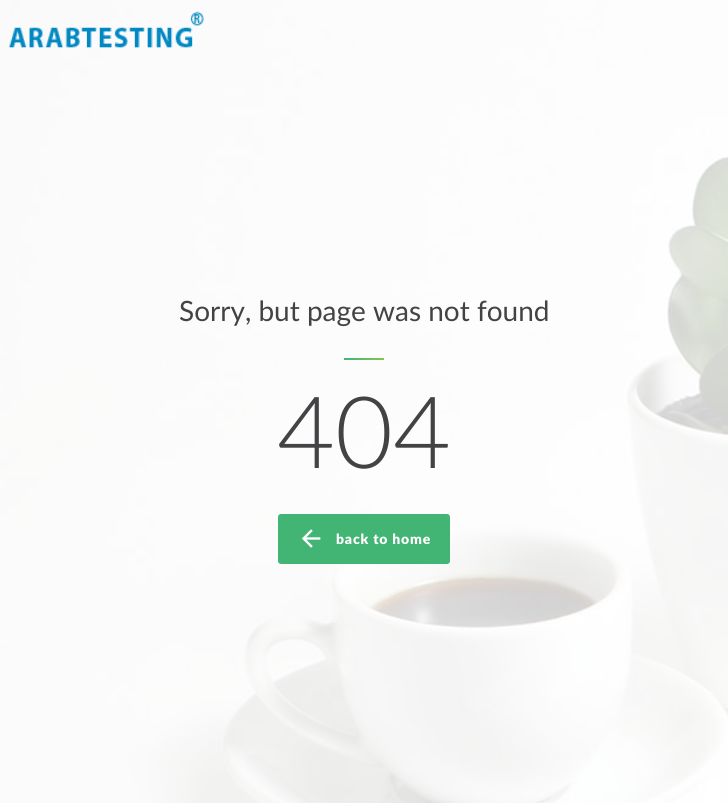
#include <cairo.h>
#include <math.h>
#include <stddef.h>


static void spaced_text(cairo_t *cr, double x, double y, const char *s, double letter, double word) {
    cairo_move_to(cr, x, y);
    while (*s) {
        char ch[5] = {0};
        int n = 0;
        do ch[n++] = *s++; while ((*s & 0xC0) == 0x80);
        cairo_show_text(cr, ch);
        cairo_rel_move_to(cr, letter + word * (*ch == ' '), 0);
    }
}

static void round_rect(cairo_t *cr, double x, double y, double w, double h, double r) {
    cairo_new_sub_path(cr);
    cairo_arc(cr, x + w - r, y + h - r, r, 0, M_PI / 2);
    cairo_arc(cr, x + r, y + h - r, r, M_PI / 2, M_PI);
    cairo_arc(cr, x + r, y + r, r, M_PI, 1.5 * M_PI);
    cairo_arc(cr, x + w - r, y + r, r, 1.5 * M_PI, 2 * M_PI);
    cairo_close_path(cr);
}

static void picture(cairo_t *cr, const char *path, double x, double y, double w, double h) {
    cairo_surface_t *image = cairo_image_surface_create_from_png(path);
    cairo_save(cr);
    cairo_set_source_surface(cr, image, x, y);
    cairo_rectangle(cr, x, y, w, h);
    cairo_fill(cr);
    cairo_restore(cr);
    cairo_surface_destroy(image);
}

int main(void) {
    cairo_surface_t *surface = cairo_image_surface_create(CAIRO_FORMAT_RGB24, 728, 803);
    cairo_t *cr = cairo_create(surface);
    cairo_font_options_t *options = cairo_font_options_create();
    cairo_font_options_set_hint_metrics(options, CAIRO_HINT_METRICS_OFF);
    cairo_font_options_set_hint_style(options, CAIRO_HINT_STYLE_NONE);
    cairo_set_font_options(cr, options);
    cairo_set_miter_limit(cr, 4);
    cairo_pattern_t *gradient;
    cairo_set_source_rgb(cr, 1, 1, 1);
    cairo_paint(cr);
    picture(cr, "img1.png", 0, 0, 728, 803);
    picture(cr, "img2.png", 8, 11, 196, 37);
    cairo_select_font_face(cr, "Lato", CAIRO_FONT_SLANT_NORMAL, CAIRO_FONT_WEIGHT_NORMAL);
    cairo_set_font_size(cr, 28);
    cairo_set_source_rgb(cr, 0.263, 0.263, 0.271);
    cairo_move_to(cr, 179, 321);
    cairo_show_text(cr, "Sorry, but page was not found");
    gradient = cairo_pattern_create_linear(344, 359, 384, 359);
    cairo_pattern_add_color_stop_rgba(gradient, 0, 0.259, 0.71, 0.455, 1);
    cairo_pattern_add_color_stop_rgba(gradient, 1, 0.518, 0.769, 0.314, 1);
    cairo_set_source(cr, gradient);
    cairo_pattern_destroy(gradient);
    cairo_rectangle(cr, 344, 358, 40, 2);
    cairo_fill(cr);
    cairo_select_font_face(cr, "Lato Light", CAIRO_FONT_SLANT_NORMAL, CAIRO_FONT_WEIGHT_NORMAL);
    cairo_set_font_size(cr, 100);
    cairo_set_source_rgb(cr, 0.263, 0.263, 0.271);
    cairo_move_to(cr, 277, 468);
    cairo_show_text(cr, "404");
    cairo_set_source_rgb(cr, 0.259, 0.71, 0.455);
    round_rect(cr, 279, 515, 170, 48, 2);
    cairo_fill_preserve(cr);
    cairo_stroke(cr);
    picture(cr, "img3.png", 302, 529, 19, 19);
    cairo_select_font_face(cr, "Lato Black", CAIRO_FONT_SLANT_NORMAL, CAIRO_FONT_WEIGHT_NORMAL);
    cairo_set_font_size(cr, 14);
    cairo_set_source_rgb(cr, 1, 1, 1);
    spaced_text(cr, 336, 544, "back to home", 0.8, 0);
    cairo_surface_write_to_png(surface, "page.png");
    cairo_font_options_destroy(options);
    cairo_destroy(cr);
    cairo_surface_destroy(surface);
    return 0;
}
